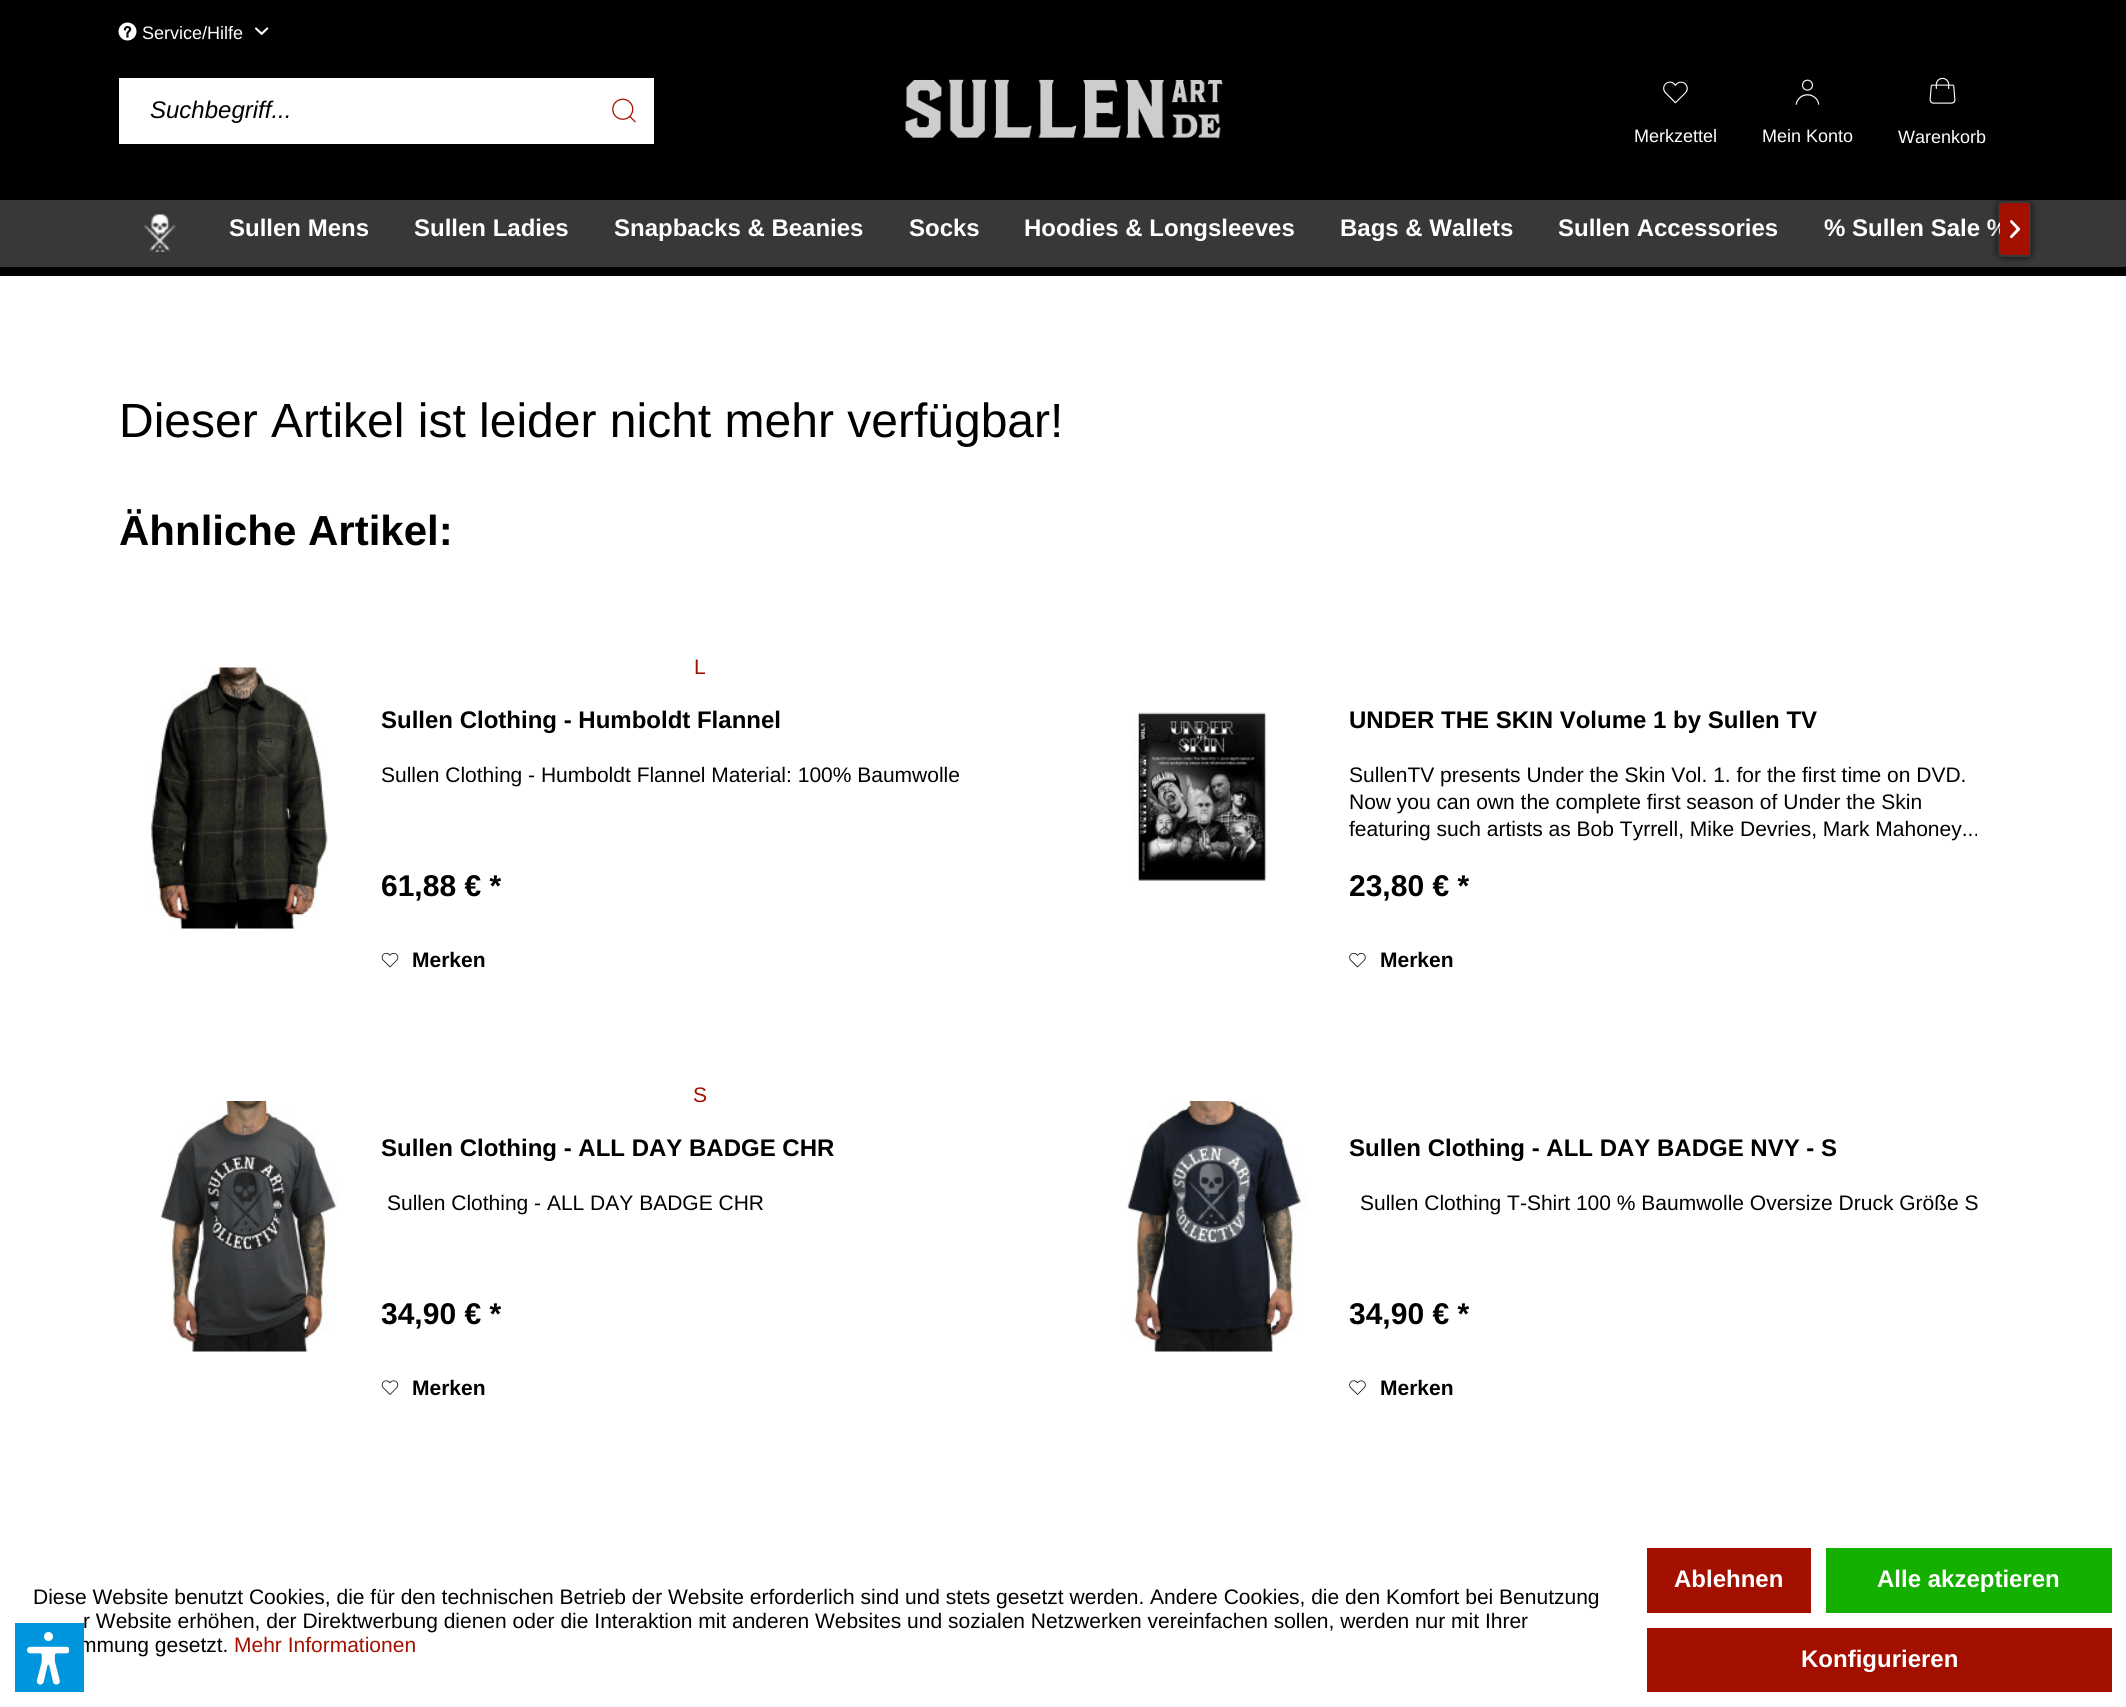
#include <cairo.h>
#include <math.h>
#include <stddef.h>


static void round_rect(cairo_t *cr, double x, double y, double w, double h, double r) {
    cairo_new_sub_path(cr);
    cairo_arc(cr, x + w - r, y + h - r, r, 0, M_PI / 2);
    cairo_arc(cr, x + r, y + h - r, r, M_PI / 2, M_PI);
    cairo_arc(cr, x + r, y + r, r, M_PI, 1.5 * M_PI);
    cairo_arc(cr, x + w - r, y + r, r, 1.5 * M_PI, 2 * M_PI);
    cairo_close_path(cr);
}

static void shadow(cairo_t *cr, double x, double y, double w, double h, double r, double blur, double alpha) {
    cairo_push_group_with_content(cr, CAIRO_CONTENT_ALPHA);
    cairo_set_operator(cr, CAIRO_OPERATOR_SOURCE);
    for (int i = 15; i >= -15 && fmin(w, h) + blur * i / 3 > 0; i -= 2) {
        double e = blur * i / 6;
        cairo_set_source_rgba(cr, 0, 0, 0, alpha * erfc((i - 1) / 8.5) / 2);
        round_rect(cr, x - e, y - e, w + 2 * e, h + 2 * e, fmax(0, fmin(r + e + blur * .6, fmin(w, h) / 2 + e)));
        cairo_fill(cr);
    }
    cairo_pattern_t *soft = cairo_pop_group(cr);
    cairo_mask(cr, soft);
    cairo_pattern_destroy(soft);
}

static void picture(cairo_t *cr, const char *path, double x, double y, double w, double h) {
    cairo_surface_t *image = cairo_image_surface_create_from_png(path);
    cairo_save(cr);
    cairo_set_source_surface(cr, image, x, y);
    cairo_rectangle(cr, x, y, w, h);
    cairo_fill(cr);
    cairo_restore(cr);
    cairo_surface_destroy(image);
}

int main(void) {
    cairo_surface_t *surface = cairo_image_surface_create(CAIRO_FORMAT_RGB24, 2126, 1707);
    cairo_t *cr = cairo_create(surface);
    cairo_font_options_t *options = cairo_font_options_create();
    cairo_font_options_set_hint_metrics(options, CAIRO_HINT_METRICS_OFF);
    cairo_font_options_set_hint_style(options, CAIRO_HINT_STYLE_NONE);
    cairo_set_font_options(cr, options);
    cairo_set_miter_limit(cr, 4);
    cairo_set_source_rgb(cr, 1, 1, 1);
    cairo_paint(cr);
    cairo_set_source_rgb(cr, 0, 0, 0);
    cairo_rectangle(cr, 0, 0, 2126, 276);
    cairo_fill(cr);
    picture(cr, "img1.png", 118, 22, 19, 19);
    cairo_select_font_face(cr, "Liberation Sans", CAIRO_FONT_SLANT_NORMAL, CAIRO_FONT_WEIGHT_NORMAL);
    cairo_set_font_size(cr, 18);
    cairo_set_source_rgb(cr, 1, 1, 1);
    cairo_move_to(cr, 142, 39);
    cairo_show_text(cr, "Service/Hilfe");
    picture(cr, "img2.png", 255, 27, 14, 8);
    cairo_rectangle(cr, 119, 78, 535, 66);
    cairo_fill(cr);
    cairo_select_font_face(cr, "Liberation Sans", CAIRO_FONT_SLANT_ITALIC, CAIRO_FONT_WEIGHT_NORMAL);
    cairo_set_font_size(cr, 24);
    cairo_set_source_rgb(cr, 0, 0, 0);
    cairo_move_to(cr, 150, 118);
    cairo_show_text(cr, "Suchbegriff...");
    picture(cr, "img3.png", 612, 98, 24, 25);
    picture(cr, "img4.png", 905, 79, 318, 60);
    picture(cr, "img5.png", 1663, 81, 25, 23);
    cairo_select_font_face(cr, "Liberation Sans", CAIRO_FONT_SLANT_NORMAL, CAIRO_FONT_WEIGHT_NORMAL);
    cairo_set_font_size(cr, 18);
    cairo_set_source_rgb(cr, 1, 1, 1);
    cairo_move_to(cr, 1634, 142);
    cairo_show_text(cr, "Merkzettel");
    picture(cr, "img6.png", 1795, 79, 25, 26);
    cairo_move_to(cr, 1762, 142);
    cairo_show_text(cr, "Mein Konto");
    picture(cr, "img7.png", 1929, 77, 27, 27);
    cairo_move_to(cr, 1898, 143);
    cairo_show_text(cr, "Warenkorb");
    cairo_set_source_rgb(cr, 0.22, 0.22, 0.22);
    cairo_rectangle(cr, 0, 200, 2126, 67);
    cairo_fill(cr);
    picture(cr, "img8.png", 144, 214, 32, 38);
    cairo_select_font_face(cr, "Liberation Sans", CAIRO_FONT_SLANT_NORMAL, CAIRO_FONT_WEIGHT_BOLD);
    cairo_set_font_size(cr, 24);
    cairo_set_source_rgb(cr, 1, 1, 1);
    cairo_move_to(cr, 229, 236);
    cairo_show_text(cr, "Sullen Mens");
    cairo_move_to(cr, 414, 236);
    cairo_show_text(cr, "Sullen Ladies");
    cairo_move_to(cr, 614, 236);
    cairo_show_text(cr, "Snapbacks & Beanies");
    cairo_move_to(cr, 909, 236);
    cairo_show_text(cr, "Socks");
    cairo_move_to(cr, 1024, 236);
    cairo_show_text(cr, "Hoodies & Longsleeves");
    cairo_move_to(cr, 1340, 236);
    cairo_show_text(cr, "Bags & Wallets");
    cairo_move_to(cr, 1558, 236);
    cairo_show_text(cr, "Sullen Accessories");
    cairo_move_to(cr, 1824, 236);
    cairo_show_text(cr, "% Sullen Sale %");
    cairo_save(cr);
    cairo_set_fill_rule(cr, CAIRO_FILL_RULE_EVEN_ODD);
    cairo_new_path(cr);
    cairo_move_to(cr, 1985, 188);
    cairo_line_to(cr, 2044, 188);
    cairo_line_to(cr, 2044, 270);
    cairo_line_to(cr, 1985, 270);
    cairo_close_path(cr);
    cairo_move_to(cr, 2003, 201);
    cairo_line_to(cr, 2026, 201);
    cairo_curve_to(cr, 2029, 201, 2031, 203, 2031, 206);
    cairo_line_to(cr, 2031, 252);
    cairo_curve_to(cr, 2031, 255, 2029, 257, 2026, 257);
    cairo_line_to(cr, 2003, 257);
    cairo_curve_to(cr, 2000, 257, 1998, 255, 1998, 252);
    cairo_line_to(cr, 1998, 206);
    cairo_curve_to(cr, 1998, 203, 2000, 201, 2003, 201);
    cairo_close_path(cr);
    cairo_clip(cr);
    cairo_set_source_rgb(cr, 0, 0, 0);
    shadow(cr, 1998, 201, 33, 56, 5, 4, 0.75);
    cairo_restore(cr);
    cairo_set_source_rgb(cr, 0.639, 0.063, 0);
    round_rect(cr, 2000, 203, 30, 52, 3);
    cairo_fill(cr);
    picture(cr, "img9.png", 2010, 220, 11, 19);
    cairo_select_font_face(cr, "Liberation Sans", CAIRO_FONT_SLANT_NORMAL, CAIRO_FONT_WEIGHT_NORMAL);
    cairo_set_font_size(cr, 48);
    cairo_set_source_rgb(cr, 0, 0, 0);
    cairo_move_to(cr, 119, 437);
    cairo_show_text(cr, "Dieser Artikel ist leider nicht mehr verfügbar!");
    cairo_select_font_face(cr, "Liberation Sans", CAIRO_FONT_SLANT_NORMAL, CAIRO_FONT_WEIGHT_BOLD);
    cairo_set_font_size(cr, 42);
    cairo_move_to(cr, 119, 545);
    cairo_show_text(cr, "Ähnliche Artikel:");
    picture(cr, "img10.png", 150, 667, 178, 262);
    cairo_select_font_face(cr, "Liberation Sans", CAIRO_FONT_SLANT_NORMAL, CAIRO_FONT_WEIGHT_NORMAL);
    cairo_set_font_size(cr, 21);
    cairo_set_source_rgb(cr, 0.639, 0.063, 0);
    cairo_move_to(cr, 694, 674);
    cairo_show_text(cr, "L");
    cairo_select_font_face(cr, "Liberation Sans", CAIRO_FONT_SLANT_NORMAL, CAIRO_FONT_WEIGHT_BOLD);
    cairo_set_font_size(cr, 24);
    cairo_set_source_rgb(cr, 0, 0, 0);
    cairo_move_to(cr, 381, 728);
    cairo_show_text(cr, "Sullen Clothing - Humboldt Flannel");
    cairo_select_font_face(cr, "Liberation Sans", CAIRO_FONT_SLANT_NORMAL, CAIRO_FONT_WEIGHT_NORMAL);
    cairo_set_font_size(cr, 21);
    cairo_move_to(cr, 381, 782);
    cairo_show_text(cr, "Sullen Clothing - Humboldt Flannel Material: 100% Baumwolle");
    cairo_select_font_face(cr, "Liberation Sans", CAIRO_FONT_SLANT_NORMAL, CAIRO_FONT_WEIGHT_BOLD);
    cairo_set_font_size(cr, 30);
    cairo_move_to(cr, 381, 896);
    cairo_show_text(cr, "61,88 € *");
    picture(cr, "img11.png", 381, 952, 18, 16);
    cairo_set_font_size(cr, 21);
    cairo_move_to(cr, 412, 967);
    cairo_show_text(cr, "Merken");
    picture(cr, "img12.png", 1134, 712, 134, 169);
    cairo_set_font_size(cr, 24);
    cairo_move_to(cr, 1349, 728);
    cairo_show_text(cr, "UNDER THE SKIN Volume 1 by Sullen TV");
    cairo_select_font_face(cr, "Liberation Sans", CAIRO_FONT_SLANT_NORMAL, CAIRO_FONT_WEIGHT_NORMAL);
    cairo_set_font_size(cr, 21);
    cairo_move_to(cr, 1349, 782);
    cairo_show_text(cr, "SullenTV presents Under the Skin Vol. 1. for the first time on DVD.");
    cairo_move_to(cr, 1349, 809);
    cairo_show_text(cr, "Now you can own the complete first season of Under the Skin");
    cairo_move_to(cr, 1349, 836);
    cairo_show_text(cr, "featuring such artists as Bob Tyrrell, Mike Devries, Mark Mahoney...");
    cairo_select_font_face(cr, "Liberation Sans", CAIRO_FONT_SLANT_NORMAL, CAIRO_FONT_WEIGHT_BOLD);
    cairo_set_font_size(cr, 30);
    cairo_move_to(cr, 1349, 896);
    cairo_show_text(cr, "23,80 € *");
    picture(cr, "img13.png", 1349, 952, 17, 16);
    cairo_set_font_size(cr, 21);
    cairo_move_to(cr, 1380, 967);
    cairo_show_text(cr, "Merken");
    cairo_select_font_face(cr, "Liberation Sans", CAIRO_FONT_SLANT_NORMAL, CAIRO_FONT_WEIGHT_NORMAL);
    cairo_set_source_rgb(cr, 0.639, 0.063, 0);
    cairo_move_to(cr, 693, 1102);
    cairo_show_text(cr, "S");
    picture(cr, "img14.png", 160, 1101, 179, 251);
    cairo_select_font_face(cr, "Liberation Sans", CAIRO_FONT_SLANT_NORMAL, CAIRO_FONT_WEIGHT_BOLD);
    cairo_set_font_size(cr, 24);
    cairo_set_source_rgb(cr, 0, 0, 0);
    cairo_move_to(cr, 381, 1156);
    cairo_show_text(cr, "Sullen Clothing - ALL DAY BADGE CHR");
    cairo_select_font_face(cr, "Liberation Sans", CAIRO_FONT_SLANT_NORMAL, CAIRO_FONT_WEIGHT_NORMAL);
    cairo_set_font_size(cr, 21);
    cairo_move_to(cr, 387, 1210);
    cairo_show_text(cr, "Sullen Clothing - ALL DAY BADGE CHR");
    cairo_select_font_face(cr, "Liberation Sans", CAIRO_FONT_SLANT_NORMAL, CAIRO_FONT_WEIGHT_BOLD);
    cairo_set_font_size(cr, 30);
    cairo_move_to(cr, 381, 1324);
    cairo_show_text(cr, "34,90 € *");
    picture(cr, "img15.png", 381, 1380, 18, 15);
    cairo_set_font_size(cr, 21);
    cairo_move_to(cr, 412, 1395);
    cairo_show_text(cr, "Merken");
    picture(cr, "img16.png", 1126, 1101, 180, 251);
    cairo_set_font_size(cr, 24);
    cairo_move_to(cr, 1349, 1156);
    cairo_show_text(cr, "Sullen Clothing - ALL DAY BADGE NVY - S");
    cairo_select_font_face(cr, "Liberation Sans", CAIRO_FONT_SLANT_NORMAL, CAIRO_FONT_WEIGHT_NORMAL);
    cairo_set_font_size(cr, 21);
    cairo_move_to(cr, 1360, 1210);
    cairo_show_text(cr, "Sullen Clothing T-Shirt 100 % Baumwolle Oversize Druck Größe S");
    cairo_select_font_face(cr, "Liberation Sans", CAIRO_FONT_SLANT_NORMAL, CAIRO_FONT_WEIGHT_BOLD);
    cairo_set_font_size(cr, 30);
    cairo_move_to(cr, 1349, 1324);
    cairo_show_text(cr, "34,90 € *");
    picture(cr, "img17.png", 1349, 1380, 17, 15);
    cairo_set_font_size(cr, 21);
    cairo_move_to(cr, 1380, 1395);
    cairo_show_text(cr, "Merken");
    cairo_select_font_face(cr, "Liberation Sans", CAIRO_FONT_SLANT_NORMAL, CAIRO_FONT_WEIGHT_NORMAL);
    cairo_move_to(cr, 33, 1604);
    cairo_show_text(cr, "Diese Website benutzt Cookies, die für den technischen Betrieb der Website erforderlich sind und stets gesetzt werden. Andere Cookies, die den Komfort bei Benutzung");
    cairo_move_to(cr, 83, 1628);
    cairo_show_text(cr, "r Website erhöhen, der Direktwerbung dienen oder die Interaktion mit anderen Websites und sozialen Netzwerken vereinfachen sollen, werden nur mit Ihrer");
    cairo_move_to(cr, 79, 1652);
    cairo_show_text(cr, "mmung gesetzt.");
    cairo_set_source_rgb(cr, 0.639, 0.063, 0);
    cairo_move_to(cr, 234, 1652);
    cairo_show_text(cr, "Mehr Informationen");
    cairo_rectangle(cr, 1647, 1548, 164, 65);
    cairo_fill(cr);
    cairo_select_font_face(cr, "Liberation Sans", CAIRO_FONT_SLANT_NORMAL, CAIRO_FONT_WEIGHT_BOLD);
    cairo_set_font_size(cr, 24);
    cairo_set_source_rgb(cr, 1, 1, 1);
    cairo_move_to(cr, 1674, 1587);
    cairo_show_text(cr, "Ablehnen");
    cairo_set_source_rgb(cr, 0.078, 0.69, 0);
    cairo_rectangle(cr, 1826, 1548, 286, 65);
    cairo_fill(cr);
    cairo_set_source_rgb(cr, 1, 1, 1);
    cairo_move_to(cr, 1877, 1587);
    cairo_show_text(cr, "Alle akzeptieren");
    cairo_set_source_rgb(cr, 0.639, 0.063, 0);
    cairo_rectangle(cr, 1647, 1628, 465, 64);
    cairo_fill(cr);
    cairo_set_source_rgb(cr, 1, 1, 1);
    cairo_move_to(cr, 1801, 1667);
    cairo_show_text(cr, "Konfigurieren");
    cairo_set_source_rgb(cr, 0, 0.588, 0.871);
    cairo_rectangle(cr, 15, 1623, 69, 69);
    cairo_fill(cr);
    picture(cr, "img18.png", 27, 1632, 42, 53);
    cairo_surface_write_to_png(surface, "page.png");
    cairo_font_options_destroy(options);
    cairo_destroy(cr);
    cairo_surface_destroy(surface);
    return 0;
}
